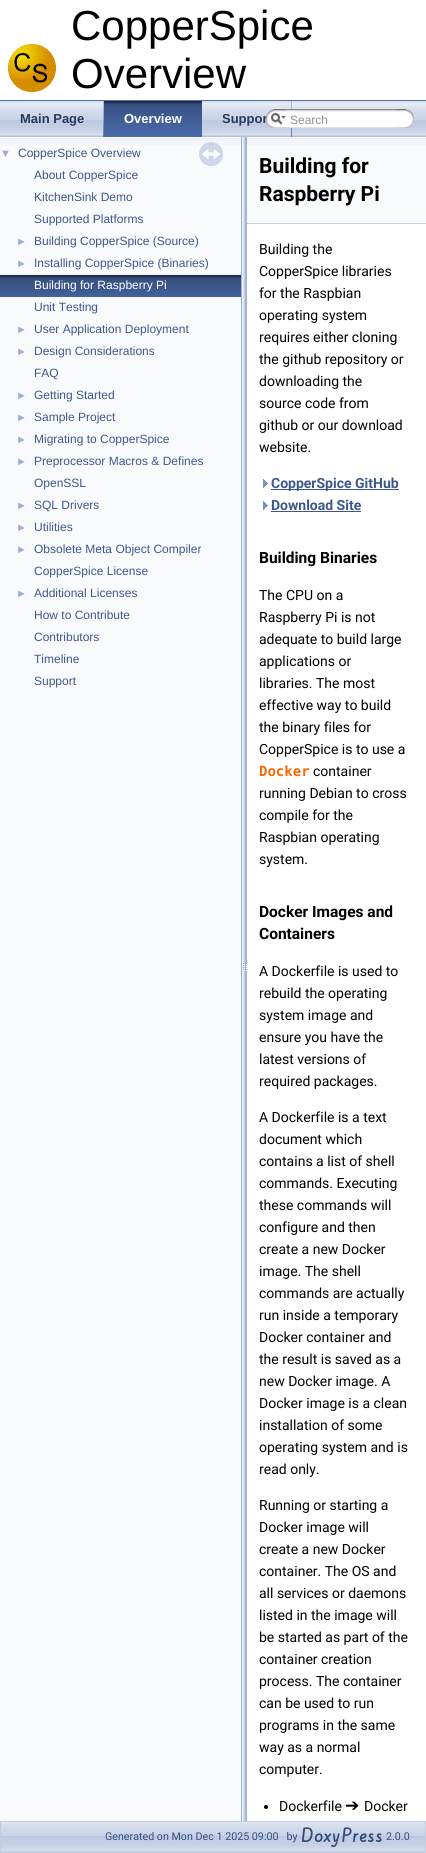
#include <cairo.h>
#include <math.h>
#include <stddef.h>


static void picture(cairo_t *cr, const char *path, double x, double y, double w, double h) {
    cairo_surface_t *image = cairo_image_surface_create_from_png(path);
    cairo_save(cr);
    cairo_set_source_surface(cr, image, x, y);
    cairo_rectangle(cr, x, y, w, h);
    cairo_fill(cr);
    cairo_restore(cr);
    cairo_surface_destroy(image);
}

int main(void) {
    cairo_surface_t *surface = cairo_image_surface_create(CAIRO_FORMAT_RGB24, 426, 1853);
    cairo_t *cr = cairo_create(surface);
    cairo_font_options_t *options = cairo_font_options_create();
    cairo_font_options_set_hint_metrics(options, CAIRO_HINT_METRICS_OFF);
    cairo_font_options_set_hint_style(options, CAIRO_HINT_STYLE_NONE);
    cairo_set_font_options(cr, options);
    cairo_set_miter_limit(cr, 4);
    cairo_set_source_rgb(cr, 1, 1, 1);
    cairo_paint(cr);
    cairo_set_source_rgb(cr, 0.325, 0.451, 0.706);
    cairo_rectangle(cr, 0, 100, 426, 1);
    cairo_fill(cr);
    picture(cr, "img1.png", 8, 44, 48, 48);
    cairo_select_font_face(cr, "Liberation Sans", CAIRO_FONT_SLANT_NORMAL, CAIRO_FONT_WEIGHT_NORMAL);
    cairo_set_font_size(cr, 42);
    cairo_set_source_rgb(cr, 0, 0, 0);
    cairo_move_to(cr, 71, 40);
    cairo_show_text(cr, "CopperSpice");
    cairo_move_to(cr, 71, 88);
    cairo_show_text(cr, "Overview");
    picture(cr, "img2.png", 0, 101, 426, 36);
    picture(cr, "img3.png", 103, 101, 1, 36);
    cairo_select_font_face(cr, "Liberation Sans", CAIRO_FONT_SLANT_NORMAL, CAIRO_FONT_WEIGHT_BOLD);
    cairo_set_font_size(cr, 13);
    cairo_set_source_rgb(cr, 0.157, 0.227, 0.365);
    cairo_move_to(cr, 20, 123);
    cairo_show_text(cr, "Main Page");
    picture(cr, "img4.png", 104, 101, 98, 36);
    cairo_set_source_rgb(cr, 1, 1, 1);
    cairo_move_to(cr, 124, 123);
    cairo_show_text(cr, "Overview");
    picture(cr, "img3.png", 291, 101, 1, 36);
    cairo_set_source_rgb(cr, 0.157, 0.227, 0.365);
    cairo_move_to(cr, 222, 123);
    cairo_show_text(cr, "Suppor");
    picture(cr, "img5.png", 266, 109, 20, 19);
    picture(cr, "img6.png", 271, 113, 15, 12);
    picture(cr, "img7.png", 286, 109, 110, 19);
    cairo_select_font_face(cr, "Liberation Sans", CAIRO_FONT_SLANT_NORMAL, CAIRO_FONT_WEIGHT_NORMAL);
    cairo_set_font_size(cr, 12);
    cairo_set_source_rgb(cr, 0.565, 0.565, 0.565);
    cairo_move_to(cr, 290, 124);
    cairo_show_text(cr, "Search");
    picture(cr, "img8.png", 396, 109, 18, 19);
    cairo_set_source_rgb(cr, 0.976, 0.98, 0.988);
    cairo_rectangle(cr, 0, 145, 241, 1676);
    cairo_fill(cr);
    picture(cr, "img9.png", 0, 137, 241, 8);
    cairo_set_font_size(cr, 11);
    cairo_set_source_rgb(cr, 0.612, 0.686, 0.831);
    cairo_move_to(cr, 0, 157);
    cairo_show_text(cr, "▼");
    cairo_set_font_size(cr, 12);
    cairo_set_source_rgb(cr, 0.239, 0.341, 0.549);
    cairo_move_to(cr, 18, 157);
    cairo_show_text(cr, "CopperSpice Overview");
    cairo_move_to(cr, 34, 179);
    cairo_show_text(cr, "About CopperSpice");
    cairo_move_to(cr, 34, 201);
    cairo_show_text(cr, "KitchenSink Demo");
    cairo_move_to(cr, 34, 223);
    cairo_show_text(cr, "Supported Platforms");
    cairo_set_font_size(cr, 11);
    cairo_set_source_rgb(cr, 0.612, 0.686, 0.831);
    cairo_move_to(cr, 16, 245);
    cairo_show_text(cr, "►");
    cairo_set_font_size(cr, 12);
    cairo_set_source_rgb(cr, 0.239, 0.341, 0.549);
    cairo_move_to(cr, 34, 245);
    cairo_show_text(cr, "Building CopperSpice (Source)");
    cairo_set_font_size(cr, 11);
    cairo_set_source_rgb(cr, 0.612, 0.686, 0.831);
    cairo_move_to(cr, 16, 267);
    cairo_show_text(cr, "►");
    cairo_set_font_size(cr, 12);
    cairo_set_source_rgb(cr, 0.239, 0.341, 0.549);
    cairo_move_to(cr, 34, 267);
    cairo_show_text(cr, "Installing CopperSpice (Binaries)");
    picture(cr, "img10.png", 0, 275, 241, 22);
    cairo_set_source_rgb(cr, 1, 1, 1);
    cairo_move_to(cr, 34, 289);
    cairo_show_text(cr, "Building for Raspberry Pi");
    cairo_set_source_rgb(cr, 0.239, 0.341, 0.549);
    cairo_move_to(cr, 34, 311);
    cairo_show_text(cr, "Unit Testing");
    cairo_set_font_size(cr, 11);
    cairo_set_source_rgb(cr, 0.612, 0.686, 0.831);
    cairo_move_to(cr, 16, 333);
    cairo_show_text(cr, "►");
    cairo_set_font_size(cr, 12);
    cairo_set_source_rgb(cr, 0.239, 0.341, 0.549);
    cairo_move_to(cr, 34, 333);
    cairo_show_text(cr, "User Application Deployment");
    cairo_set_font_size(cr, 11);
    cairo_set_source_rgb(cr, 0.612, 0.686, 0.831);
    cairo_move_to(cr, 16, 355);
    cairo_show_text(cr, "►");
    cairo_set_font_size(cr, 12);
    cairo_set_source_rgb(cr, 0.239, 0.341, 0.549);
    cairo_move_to(cr, 34, 355);
    cairo_show_text(cr, "Design Considerations");
    cairo_move_to(cr, 34, 377);
    cairo_show_text(cr, "FAQ");
    cairo_set_font_size(cr, 11);
    cairo_set_source_rgb(cr, 0.612, 0.686, 0.831);
    cairo_move_to(cr, 16, 399);
    cairo_show_text(cr, "►");
    cairo_set_font_size(cr, 12);
    cairo_set_source_rgb(cr, 0.239, 0.341, 0.549);
    cairo_move_to(cr, 34, 399);
    cairo_show_text(cr, "Getting Started");
    cairo_set_font_size(cr, 11);
    cairo_set_source_rgb(cr, 0.612, 0.686, 0.831);
    cairo_move_to(cr, 16, 421);
    cairo_show_text(cr, "►");
    cairo_set_font_size(cr, 12);
    cairo_set_source_rgb(cr, 0.239, 0.341, 0.549);
    cairo_move_to(cr, 34, 421);
    cairo_show_text(cr, "Sample Project");
    cairo_set_font_size(cr, 11);
    cairo_set_source_rgb(cr, 0.612, 0.686, 0.831);
    cairo_move_to(cr, 16, 443);
    cairo_show_text(cr, "►");
    cairo_set_font_size(cr, 12);
    cairo_set_source_rgb(cr, 0.239, 0.341, 0.549);
    cairo_move_to(cr, 34, 443);
    cairo_show_text(cr, "Migrating to CopperSpice");
    cairo_set_font_size(cr, 11);
    cairo_set_source_rgb(cr, 0.612, 0.686, 0.831);
    cairo_move_to(cr, 16, 465);
    cairo_show_text(cr, "►");
    cairo_set_font_size(cr, 12);
    cairo_set_source_rgb(cr, 0.239, 0.341, 0.549);
    cairo_move_to(cr, 34, 465);
    cairo_show_text(cr, "Preprocessor Macros & Defines");
    cairo_move_to(cr, 34, 487);
    cairo_show_text(cr, "OpenSSL");
    cairo_set_font_size(cr, 11);
    cairo_set_source_rgb(cr, 0.612, 0.686, 0.831);
    cairo_move_to(cr, 16, 509);
    cairo_show_text(cr, "►");
    cairo_set_font_size(cr, 12);
    cairo_set_source_rgb(cr, 0.239, 0.341, 0.549);
    cairo_move_to(cr, 34, 509);
    cairo_show_text(cr, "SQL Drivers");
    cairo_set_font_size(cr, 11);
    cairo_set_source_rgb(cr, 0.612, 0.686, 0.831);
    cairo_move_to(cr, 16, 531);
    cairo_show_text(cr, "►");
    cairo_set_font_size(cr, 12);
    cairo_set_source_rgb(cr, 0.239, 0.341, 0.549);
    cairo_move_to(cr, 34, 531);
    cairo_show_text(cr, "Utilities");
    cairo_set_font_size(cr, 11);
    cairo_set_source_rgb(cr, 0.612, 0.686, 0.831);
    cairo_move_to(cr, 16, 553);
    cairo_show_text(cr, "►");
    cairo_set_font_size(cr, 12);
    cairo_set_source_rgb(cr, 0.239, 0.341, 0.549);
    cairo_move_to(cr, 34, 553);
    cairo_show_text(cr, "Obsolete Meta Object Compiler");
    cairo_move_to(cr, 34, 575);
    cairo_show_text(cr, "CopperSpice License");
    cairo_set_font_size(cr, 11);
    cairo_set_source_rgb(cr, 0.612, 0.686, 0.831);
    cairo_move_to(cr, 16, 597);
    cairo_show_text(cr, "►");
    cairo_set_font_size(cr, 12);
    cairo_set_source_rgb(cr, 0.239, 0.341, 0.549);
    cairo_move_to(cr, 34, 597);
    cairo_show_text(cr, "Additional Licenses");
    cairo_move_to(cr, 34, 619);
    cairo_show_text(cr, "How to Contribute");
    cairo_move_to(cr, 34, 641);
    cairo_show_text(cr, "Contributors");
    cairo_move_to(cr, 34, 663);
    cairo_show_text(cr, "Timeline");
    cairo_move_to(cr, 34, 685);
    cairo_show_text(cr, "Support");
    picture(cr, "img11.png", 199, 142, 24, 24);
    picture(cr, "img12.png", 241, 137, 6, 1684);
    cairo_set_source_rgb(cr, 0.976, 0.98, 0.988);
    cairo_rectangle(cr, 247, 145, 179, 78);
    cairo_fill(cr);
    picture(cr, "img13.png", 247, 137, 179, 8);
    cairo_set_source_rgb(cr, 0.769, 0.812, 0.898);
    cairo_rectangle(cr, 247, 223, 179, 1);
    cairo_fill(cr);
    cairo_select_font_face(cr, "Roboto", CAIRO_FONT_SLANT_NORMAL, CAIRO_FONT_WEIGHT_BOLD);
    cairo_set_font_size(cr, 21);
    cairo_set_source_rgb(cr, 0, 0, 0);
    cairo_move_to(cr, 259, 173);
    cairo_show_text(cr, "Building for");
    cairo_move_to(cr, 259, 201);
    cairo_show_text(cr, "Raspberry Pi");
    cairo_select_font_face(cr, "Roboto", CAIRO_FONT_SLANT_NORMAL, CAIRO_FONT_WEIGHT_NORMAL);
    cairo_set_font_size(cr, 14);
    cairo_move_to(cr, 259, 254);
    cairo_show_text(cr, "Building the");
    cairo_move_to(cr, 259, 276);
    cairo_show_text(cr, "CopperSpice libraries");
    cairo_move_to(cr, 259, 298);
    cairo_show_text(cr, "for the Raspbian");
    cairo_move_to(cr, 259, 320);
    cairo_show_text(cr, "operating system");
    cairo_move_to(cr, 259, 342);
    cairo_show_text(cr, "requires either cloning");
    cairo_move_to(cr, 259, 364);
    cairo_show_text(cr, "the github repository or");
    cairo_move_to(cr, 259, 386);
    cairo_show_text(cr, "downloading the");
    cairo_move_to(cr, 259, 408);
    cairo_show_text(cr, "source code from");
    cairo_move_to(cr, 259, 430);
    cairo_show_text(cr, "github or our download");
    cairo_move_to(cr, 259, 452);
    cairo_show_text(cr, "website.");
    picture(cr, "img14.png", 263, 479, 5, 9);
    cairo_set_source_rgb(cr, 0.239, 0.341, 0.549);
    cairo_rectangle(cr, 271, 489, 128, 1);
    cairo_fill(cr);
    cairo_select_font_face(cr, "Roboto", CAIRO_FONT_SLANT_NORMAL, CAIRO_FONT_WEIGHT_BOLD);
    cairo_move_to(cr, 271, 488);
    cairo_show_text(cr, "CopperSpice GitHub");
    picture(cr, "img14.png", 263, 501, 5, 9);
    cairo_move_to(cr, 271, 510);
    cairo_show_text(cr, "Download Site");
    cairo_rectangle(cr, 271, 511, 90, 1);
    cairo_fill(cr);
    cairo_set_font_size(cr, 15.5);
    cairo_set_source_rgb(cr, 0, 0, 0);
    cairo_move_to(cr, 259, 563);
    cairo_show_text(cr, "Building Binaries");
    cairo_select_font_face(cr, "Roboto", CAIRO_FONT_SLANT_NORMAL, CAIRO_FONT_WEIGHT_NORMAL);
    cairo_set_font_size(cr, 14);
    cairo_move_to(cr, 259, 600);
    cairo_show_text(cr, "The CPU on a");
    cairo_move_to(cr, 259, 622);
    cairo_show_text(cr, "Raspberry Pi is not");
    cairo_move_to(cr, 259, 644);
    cairo_show_text(cr, "adequate to build large");
    cairo_move_to(cr, 259, 666);
    cairo_show_text(cr, "applications or");
    cairo_move_to(cr, 259, 688);
    cairo_show_text(cr, "libraries. The most");
    cairo_move_to(cr, 259, 710);
    cairo_show_text(cr, "effective way to build");
    cairo_move_to(cr, 259, 732);
    cairo_show_text(cr, "the binary files for");
    cairo_move_to(cr, 259, 754);
    cairo_show_text(cr, "CopperSpice is to use a");
    cairo_select_font_face(cr, "DejaVu Sans Mono", CAIRO_FONT_SLANT_NORMAL, CAIRO_FONT_WEIGHT_BOLD);
    cairo_set_source_rgb(cr, 0.976, 0.412, 0);
    cairo_move_to(cr, 259, 776);
    cairo_show_text(cr, "Docker");
    cairo_select_font_face(cr, "Roboto", CAIRO_FONT_SLANT_NORMAL, CAIRO_FONT_WEIGHT_NORMAL);
    cairo_set_source_rgb(cr, 0, 0, 0);
    cairo_move_to(cr, 313, 776);
    cairo_show_text(cr, "container");
    cairo_move_to(cr, 259, 798);
    cairo_show_text(cr, "running Debian to cross");
    cairo_move_to(cr, 259, 820);
    cairo_show_text(cr, "compile for the");
    cairo_move_to(cr, 259, 842);
    cairo_show_text(cr, "Raspbian operating");
    cairo_move_to(cr, 259, 864);
    cairo_show_text(cr, "system.");
    cairo_select_font_face(cr, "Roboto", CAIRO_FONT_SLANT_NORMAL, CAIRO_FONT_WEIGHT_BOLD);
    cairo_set_font_size(cr, 15.5);
    cairo_move_to(cr, 259, 917);
    cairo_show_text(cr, "Docker Images and");
    cairo_move_to(cr, 259, 939);
    cairo_show_text(cr, "Containers");
    cairo_select_font_face(cr, "Roboto", CAIRO_FONT_SLANT_NORMAL, CAIRO_FONT_WEIGHT_NORMAL);
    cairo_set_font_size(cr, 14);
    cairo_move_to(cr, 259, 976);
    cairo_show_text(cr, "A Dockerfile is used to");
    cairo_move_to(cr, 259, 998);
    cairo_show_text(cr, "rebuild the operating");
    cairo_move_to(cr, 259, 1020);
    cairo_show_text(cr, "system image and");
    cairo_move_to(cr, 259, 1042);
    cairo_show_text(cr, "ensure you have the");
    cairo_move_to(cr, 259, 1064);
    cairo_show_text(cr, "latest versions of");
    cairo_move_to(cr, 259, 1086);
    cairo_show_text(cr, "required packages.");
    cairo_move_to(cr, 259, 1122);
    cairo_show_text(cr, "A Dockerfile is a text");
    cairo_move_to(cr, 259, 1144);
    cairo_show_text(cr, "document which");
    cairo_move_to(cr, 259, 1166);
    cairo_show_text(cr, "contains a list of shell");
    cairo_move_to(cr, 259, 1188);
    cairo_show_text(cr, "commands. Executing");
    cairo_move_to(cr, 259, 1210);
    cairo_show_text(cr, "these commands will");
    cairo_move_to(cr, 259, 1232);
    cairo_show_text(cr, "configure and then");
    cairo_move_to(cr, 259, 1254);
    cairo_show_text(cr, "create a new Docker");
    cairo_move_to(cr, 259, 1276);
    cairo_show_text(cr, "image. The shell");
    cairo_move_to(cr, 259, 1298);
    cairo_show_text(cr, "commands are actually");
    cairo_move_to(cr, 259, 1320);
    cairo_show_text(cr, "run inside a temporary");
    cairo_move_to(cr, 259, 1342);
    cairo_show_text(cr, "Docker container and");
    cairo_move_to(cr, 259, 1364);
    cairo_show_text(cr, "the result is saved as a");
    cairo_move_to(cr, 259, 1386);
    cairo_show_text(cr, "new Docker image. A");
    cairo_move_to(cr, 259, 1408);
    cairo_show_text(cr, "Docker image is a clean");
    cairo_move_to(cr, 259, 1430);
    cairo_show_text(cr, "installation of some");
    cairo_move_to(cr, 259, 1452);
    cairo_show_text(cr, "operating system and is");
    cairo_move_to(cr, 259, 1474);
    cairo_show_text(cr, "read only.");
    cairo_move_to(cr, 259, 1510);
    cairo_show_text(cr, "Running or starting a");
    cairo_move_to(cr, 259, 1532);
    cairo_show_text(cr, "Docker image will");
    cairo_move_to(cr, 259, 1554);
    cairo_show_text(cr, "create a new Docker");
    cairo_move_to(cr, 259, 1576);
    cairo_show_text(cr, "container. The OS and");
    cairo_move_to(cr, 259, 1598);
    cairo_show_text(cr, "all services or daemons");
    cairo_move_to(cr, 259, 1620);
    cairo_show_text(cr, "listed in the image will");
    cairo_move_to(cr, 259, 1642);
    cairo_show_text(cr, "be started as part of the");
    cairo_move_to(cr, 259, 1664);
    cairo_show_text(cr, "container creation");
    cairo_move_to(cr, 259, 1686);
    cairo_show_text(cr, "process. The container");
    cairo_move_to(cr, 259, 1708);
    cairo_show_text(cr, "can be used to run");
    cairo_move_to(cr, 259, 1730);
    cairo_show_text(cr, "programs in the same");
    cairo_move_to(cr, 259, 1752);
    cairo_show_text(cr, "way as a normal");
    cairo_move_to(cr, 259, 1774);
    cairo_show_text(cr, "computer.");
    cairo_new_path(cr);
    cairo_arc(cr, 266, 1807, 2, 0, 2 * M_PI);
    cairo_fill(cr);
    cairo_move_to(cr, 279, 1811);
    cairo_show_text(cr, "Dockerfile");
    cairo_select_font_face(cr, "DejaVu Sans", CAIRO_FONT_SLANT_NORMAL, CAIRO_FONT_WEIGHT_NORMAL);
    cairo_set_font_size(cr, 17);
    cairo_move_to(cr, 345, 1811);
    cairo_show_text(cr, "➔");
    cairo_select_font_face(cr, "Roboto", CAIRO_FONT_SLANT_NORMAL, CAIRO_FONT_WEIGHT_NORMAL);
    cairo_set_font_size(cr, 14);
    cairo_move_to(cr, 364, 1811);
    cairo_show_text(cr, "Docker");
    picture(cr, "img15.png", 1, 1822, 424, 30);
    cairo_rectangle(cr, 0.5, 1821.5, 425, 31);
    cairo_set_source_rgb(cr, 0.761, 0.804, 0.894);
    cairo_set_line_width(cr, 1);
    cairo_stroke(cr);
    cairo_set_font_size(cr, 10.7);
    cairo_set_source_rgb(cr, 0.212, 0.302, 0.486);
    cairo_move_to(cr, 105, 1840);
    cairo_show_text(cr, "Generated on Mon Dec 1 2025 09:00   by");
    picture(cr, "img16.png", 301, 1827, 81, 20);
    cairo_move_to(cr, 386, 1840);
    cairo_show_text(cr, "2.0.0");
    cairo_surface_write_to_png(surface, "page.png");
    cairo_font_options_destroy(options);
    cairo_destroy(cr);
    cairo_surface_destroy(surface);
    return 0;
}
